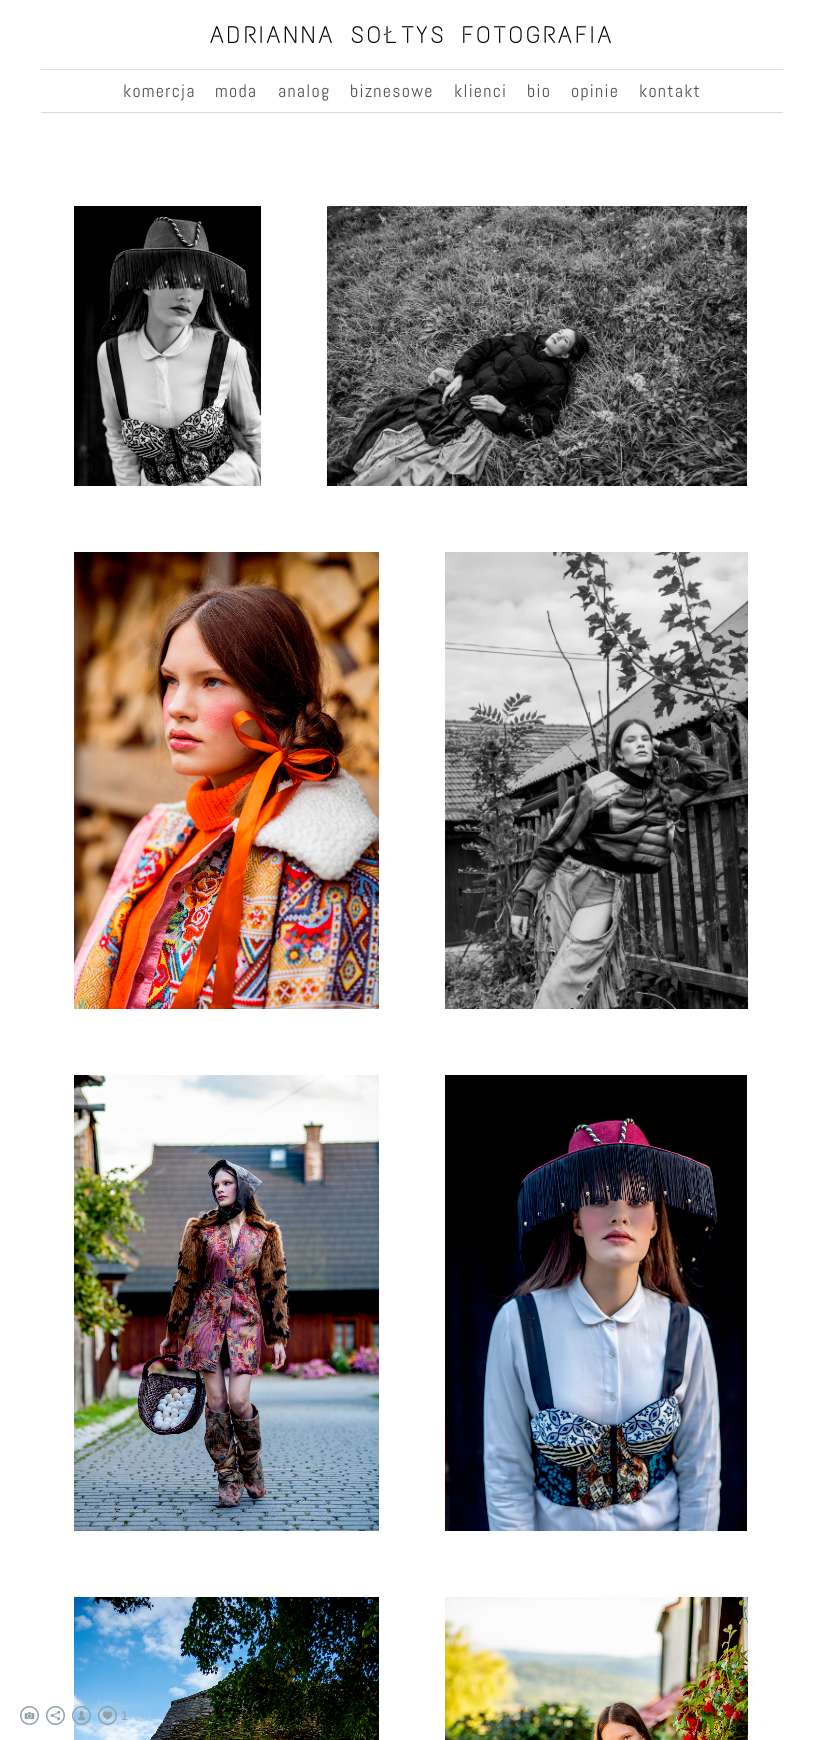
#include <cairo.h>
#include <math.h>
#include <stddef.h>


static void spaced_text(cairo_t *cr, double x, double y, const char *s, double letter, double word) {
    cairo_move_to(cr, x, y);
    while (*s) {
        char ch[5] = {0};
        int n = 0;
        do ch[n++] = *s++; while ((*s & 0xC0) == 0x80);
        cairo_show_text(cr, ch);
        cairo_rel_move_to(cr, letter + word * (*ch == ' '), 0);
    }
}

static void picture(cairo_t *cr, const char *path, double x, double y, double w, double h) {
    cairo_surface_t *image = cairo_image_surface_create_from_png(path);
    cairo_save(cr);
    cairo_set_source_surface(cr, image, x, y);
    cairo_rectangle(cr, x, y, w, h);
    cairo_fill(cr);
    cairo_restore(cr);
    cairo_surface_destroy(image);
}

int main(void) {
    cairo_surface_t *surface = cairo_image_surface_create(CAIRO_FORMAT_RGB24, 824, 1740);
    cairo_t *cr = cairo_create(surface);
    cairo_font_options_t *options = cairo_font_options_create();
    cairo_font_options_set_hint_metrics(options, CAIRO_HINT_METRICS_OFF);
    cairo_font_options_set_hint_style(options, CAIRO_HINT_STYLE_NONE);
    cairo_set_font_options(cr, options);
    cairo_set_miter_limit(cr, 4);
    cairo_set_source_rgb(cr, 1, 1, 1);
    cairo_paint(cr);
    cairo_select_font_face(cr, "Text Me One", CAIRO_FONT_SLANT_NORMAL, CAIRO_FONT_WEIGHT_NORMAL);
    cairo_set_font_size(cr, 24);
    cairo_set_source_rgb(cr, 0, 0, 0);
    spaced_text(cr, 210, 43, "ADRIANNA SOŁTYS FOTOGRAFIA", 3, 0);
    cairo_set_source_rgb(cr, 0.863, 0.863, 0.863);
    cairo_rectangle(cr, 41, 69, 742, 1);
    cairo_fill(cr);
    cairo_rectangle(cr, 41, 112, 742, 1);
    cairo_fill(cr);
    cairo_select_font_face(cr, "Abel", CAIRO_FONT_SLANT_NORMAL, CAIRO_FONT_WEIGHT_NORMAL);
    cairo_set_font_size(cr, 18);
    cairo_set_source_rgb(cr, 0.31, 0.31, 0.31);
    spaced_text(cr, 123, 97, "komercja", 1.25, 0);
    spaced_text(cr, 215, 97, "moda", 1.25, 0);
    spaced_text(cr, 278, 97, "analog", 1.25, 0);
    spaced_text(cr, 350, 97, "biznesowe", 1.25, 0);
    spaced_text(cr, 454, 97, "klienci", 1.25, 0);
    spaced_text(cr, 527, 97, "bio", 1.25, 0);
    spaced_text(cr, 571, 97, "opinie", 1.25, 0);
    spaced_text(cr, 639, 97, "kontakt", 1.25, 0);
    picture(cr, "img1.png", 74, 206, 187, 280);
    picture(cr, "img2.png", 327, 206, 420, 280);
    picture(cr, "img3.png", 74, 552, 305, 457);
    picture(cr, "img4.png", 445, 552, 303, 457);
    picture(cr, "img5.png", 74, 1075, 305, 456);
    picture(cr, "img6.png", 445, 1075, 302, 456);
    picture(cr, "img7.png", 74, 1597, 305, 143);
    picture(cr, "img8.png", 445, 1597, 303, 143);
    picture(cr, "img9.png", 20, 1706, 19, 19);
    picture(cr, "img10.png", 46, 1706, 19, 19);
    picture(cr, "img11.png", 72, 1706, 19, 19);
    picture(cr, "img12.png", 98, 1706, 19, 19);
    cairo_select_font_face(cr, "Liberation Sans", CAIRO_FONT_SLANT_NORMAL, CAIRO_FONT_WEIGHT_NORMAL);
    cairo_set_font_size(cr, 13);
    cairo_set_source_rgb(cr, 0.569, 0.631, 0.651);
    cairo_move_to(cr, 121, 1720);
    cairo_show_text(cr, "1");
    cairo_surface_write_to_png(surface, "page.png");
    cairo_font_options_destroy(options);
    cairo_destroy(cr);
    cairo_surface_destroy(surface);
    return 0;
}
